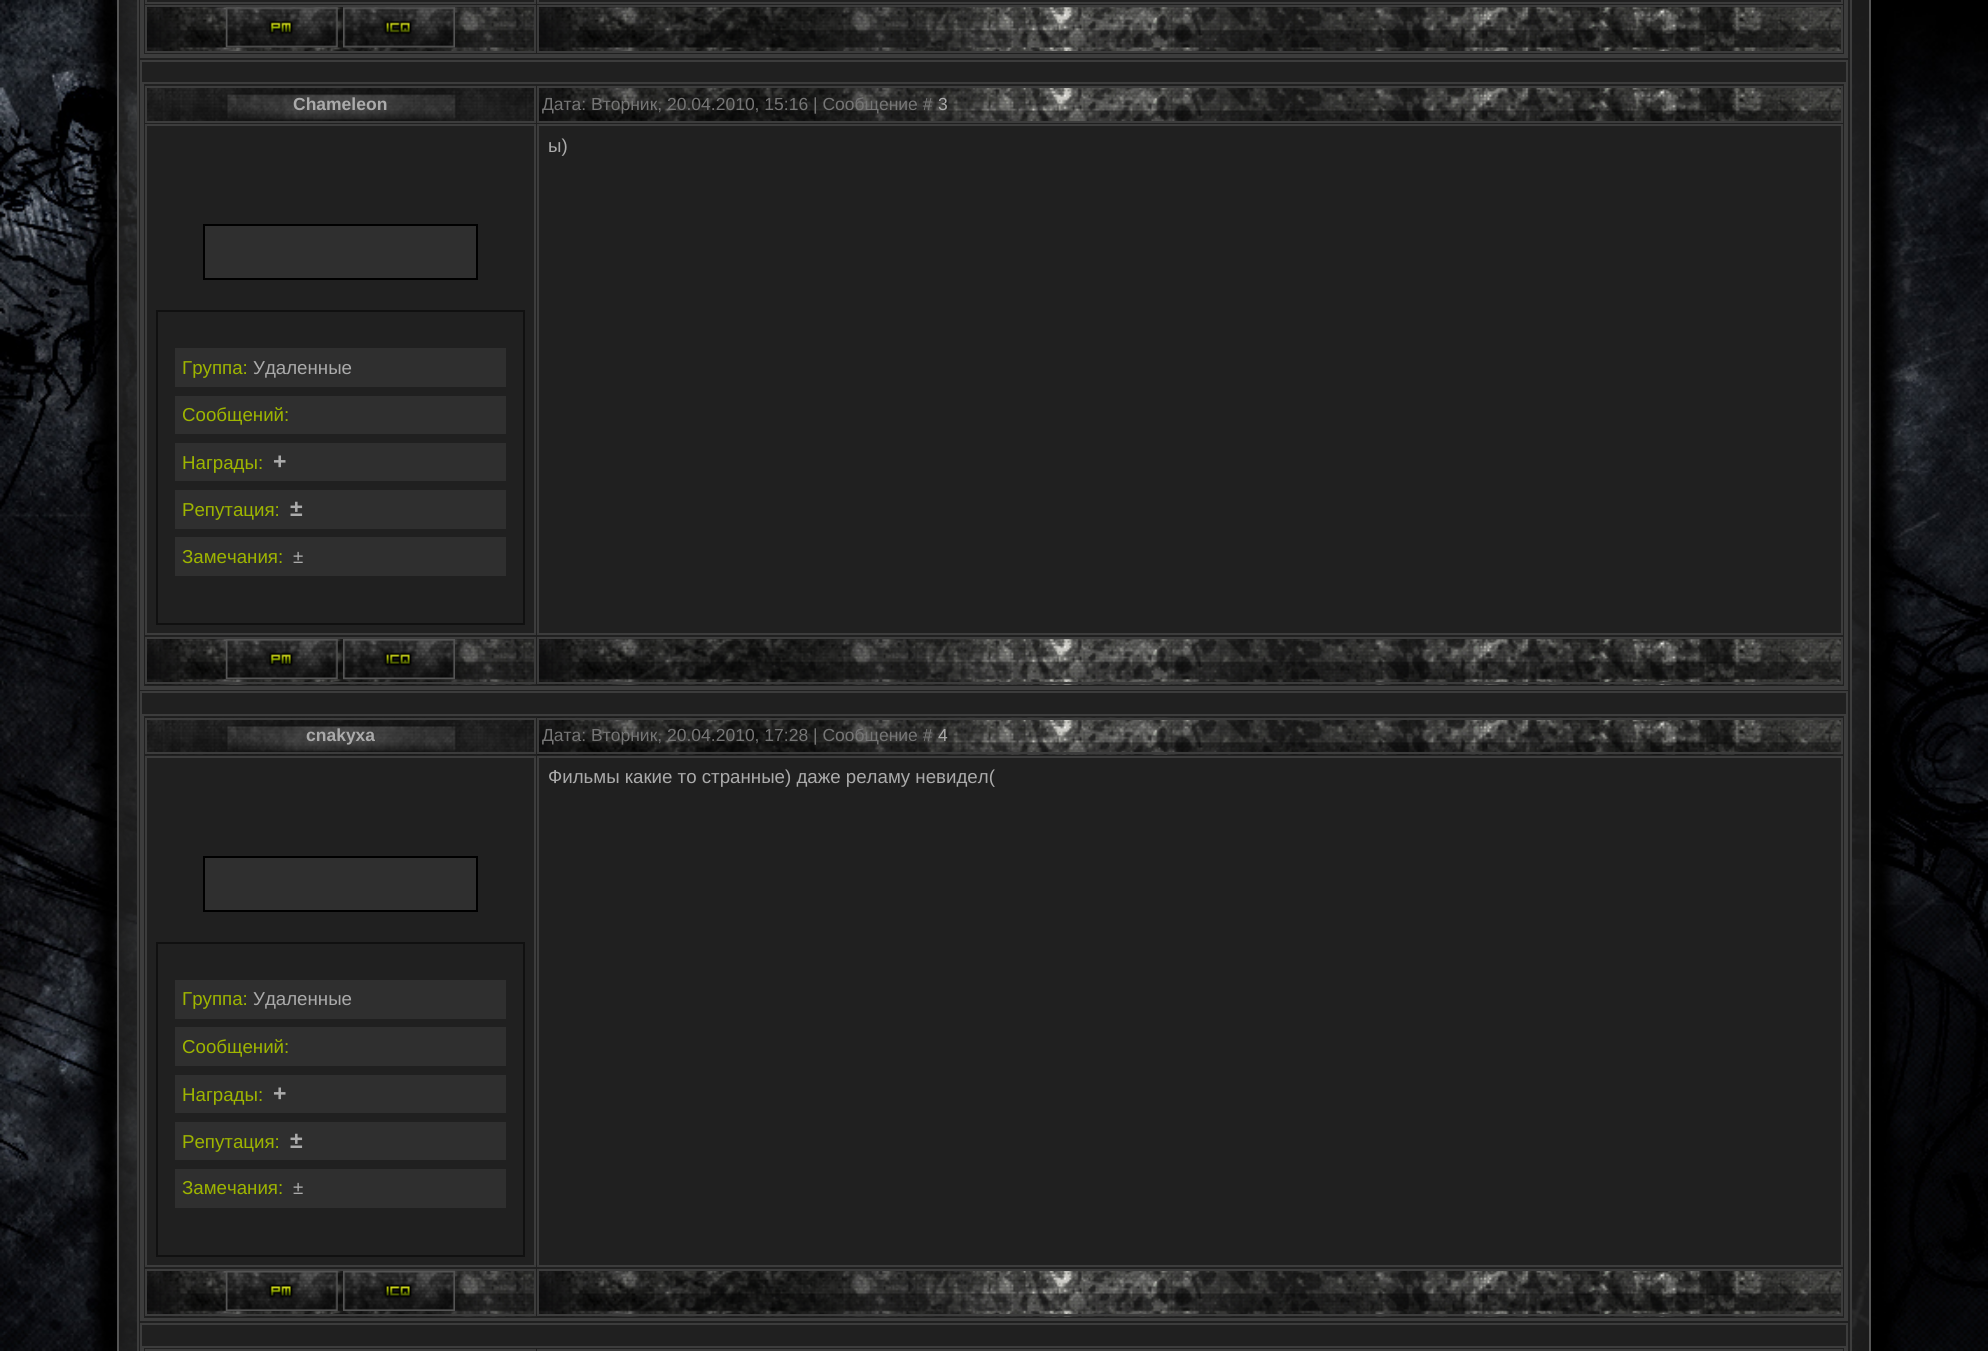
#include <cairo.h>
#include <math.h>
#include <stddef.h>


static void picture(cairo_t *cr, const char *path, double x, double y, double w, double h) {
    cairo_surface_t *image = cairo_image_surface_create_from_png(path);
    cairo_save(cr);
    cairo_set_source_surface(cr, image, x, y);
    cairo_rectangle(cr, x, y, w, h);
    cairo_fill(cr);
    cairo_restore(cr);
    cairo_surface_destroy(image);
}

int main(void) {
    cairo_surface_t *surface = cairo_image_surface_create(CAIRO_FORMAT_RGB24, 1988, 1351);
    cairo_t *cr = cairo_create(surface);
    cairo_font_options_t *options = cairo_font_options_create();
    cairo_font_options_set_hint_metrics(options, CAIRO_HINT_METRICS_OFF);
    cairo_font_options_set_hint_style(options, CAIRO_HINT_STYLE_NONE);
    cairo_set_font_options(cr, options);
    cairo_set_miter_limit(cr, 4);
    cairo_set_source_rgb(cr, 1, 1, 1);
    cairo_paint(cr);
    picture(cr, "img1.png", 0, 0, 1988, 1351);
    picture(cr, "img2.png", 119, 0, 1750, 1351);
    cairo_set_source_rgb(cr, 0.333, 0.333, 0.333);
    cairo_rectangle(cr, 1869, 0, 2, 1351);
    cairo_fill(cr);
    cairo_rectangle(cr, 117, 0, 2, 1351);
    cairo_fill(cr);
    cairo_set_source_rgb(cr, 0.125, 0.125, 0.125);
    cairo_rectangle(cr, 138, -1, 1713, 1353);
    cairo_fill_preserve(cr);
    cairo_set_source_rgb(cr, 0.235, 0.235, 0.235);
    cairo_stroke(cr);
    cairo_rectangle(cr, 141, -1, 1706, 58);
    cairo_stroke(cr);
    cairo_rectangle(cr, 143, -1, 1702, 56);
    cairo_stroke(cr);
    cairo_rectangle(cr, 146, -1, 389, 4);
    cairo_stroke(cr);
    cairo_rectangle(cr, 538, -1, 1304, 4);
    cairo_stroke(cr);
    picture(cr, "img3.png", 147, 7, 387, 44);
    cairo_rectangle(cr, 146, 6, 389, 46);
    cairo_stroke(cr);
    picture(cr, "img4.png", 225, 7, 113, 41);
    picture(cr, "img5.png", 343, 7, 112, 41);
    picture(cr, "img6.png", 539, 7, 1302, 44);
    cairo_rectangle(cr, 538, 6, 1304, 46);
    cairo_stroke(cr);
    cairo_rectangle(cr, 141, 61, 1706, 628);
    cairo_stroke(cr);
    cairo_rectangle(cr, 143, 83, 1702, 604);
    cairo_stroke(cr);
    picture(cr, "img7.png", 147, 88, 387, 33);
    cairo_rectangle(cr, 146, 87, 389, 35);
    cairo_stroke(cr);
    cairo_select_font_face(cr, "Liberation Sans", CAIRO_FONT_SLANT_NORMAL, CAIRO_FONT_WEIGHT_BOLD);
    cairo_set_font_size(cr, 17.5);
    cairo_set_source_rgb(cr, 0.671, 0.671, 0.671);
    cairo_move_to(cr, 293, 110);
    cairo_show_text(cr, "Chameleon");
    picture(cr, "img8.png", 539, 88, 1302, 33);
    cairo_rectangle(cr, 538, 87, 1304, 35);
    cairo_set_source_rgb(cr, 0.235, 0.235, 0.235);
    cairo_stroke(cr);
    cairo_select_font_face(cr, "Liberation Sans", CAIRO_FONT_SLANT_NORMAL, CAIRO_FONT_WEIGHT_NORMAL);
    cairo_set_source_rgb(cr, 0.463, 0.463, 0.463);
    cairo_move_to(cr, 542, 110);
    cairo_show_text(cr, "Дата: Вторник, 20.04.2010, 15:16 | Сообщение #");
    cairo_set_source_rgb(cr, 0.671, 0.671, 0.671);
    cairo_move_to(cr, 938, 110);
    cairo_show_text(cr, "3");
    cairo_rectangle(cr, 538, 125, 1304, 509);
    cairo_set_source_rgb(cr, 0.235, 0.235, 0.235);
    cairo_stroke(cr);
    cairo_set_font_size(cr, 18.7);
    cairo_set_source_rgb(cr, 0.671, 0.671, 0.671);
    cairo_move_to(cr, 548, 152);
    cairo_show_text(cr, "ы)");
    cairo_rectangle(cr, 146, 125, 389, 509);
    cairo_set_source_rgb(cr, 0.235, 0.235, 0.235);
    cairo_stroke(cr);
    cairo_set_source_rgb(cr, 0.184, 0.184, 0.184);
    cairo_rectangle(cr, 205, 226, 271, 52);
    cairo_fill(cr);
    cairo_set_source_rgb(cr, 0, 0, 0);
    cairo_rectangle(cr, 203, 224, 275, 2);
    cairo_fill(cr);
    cairo_rectangle(cr, 476, 224, 2, 56);
    cairo_fill(cr);
    cairo_rectangle(cr, 203, 278, 275, 2);
    cairo_fill(cr);
    cairo_rectangle(cr, 203, 224, 2, 56);
    cairo_fill(cr);
    cairo_rectangle(cr, 157, 311, 367, 313);
    cairo_set_source_rgb(cr, 0.063, 0.063, 0.063);
    cairo_stroke(cr);
    cairo_set_source_rgb(cr, 0.184, 0.184, 0.184);
    cairo_rectangle(cr, 175, 348, 331, 39);
    cairo_fill(cr);
    cairo_set_source_rgb(cr, 0.62, 0.71, 0);
    cairo_move_to(cr, 182, 374);
    cairo_show_text(cr, "Группа:");
    cairo_set_source_rgb(cr, 0.671, 0.671, 0.671);
    cairo_move_to(cr, 253, 374);
    cairo_show_text(cr, "Удаленные");
    cairo_set_source_rgb(cr, 0.184, 0.184, 0.184);
    cairo_rectangle(cr, 175, 396, 331, 38);
    cairo_fill(cr);
    cairo_set_source_rgb(cr, 0.62, 0.71, 0);
    cairo_move_to(cr, 182, 421);
    cairo_show_text(cr, "Сообщений:");
    cairo_set_source_rgb(cr, 0.184, 0.184, 0.184);
    cairo_rectangle(cr, 175, 443, 331, 38);
    cairo_fill(cr);
    cairo_set_source_rgb(cr, 0.62, 0.71, 0);
    cairo_move_to(cr, 182, 469);
    cairo_show_text(cr, "Награды:");
    cairo_select_font_face(cr, "Liberation Sans", CAIRO_FONT_SLANT_NORMAL, CAIRO_FONT_WEIGHT_BOLD);
    cairo_set_font_size(cr, 23);
    cairo_set_source_rgb(cr, 0.671, 0.671, 0.671);
    cairo_move_to(cr, 273, 469);
    cairo_show_text(cr, "+");
    cairo_set_source_rgb(cr, 0.184, 0.184, 0.184);
    cairo_rectangle(cr, 175, 490, 331, 39);
    cairo_fill(cr);
    cairo_select_font_face(cr, "Liberation Sans", CAIRO_FONT_SLANT_NORMAL, CAIRO_FONT_WEIGHT_NORMAL);
    cairo_set_font_size(cr, 18.7);
    cairo_set_source_rgb(cr, 0.62, 0.71, 0);
    cairo_move_to(cr, 182, 516);
    cairo_show_text(cr, "Репутация:");
    cairo_select_font_face(cr, "Liberation Sans", CAIRO_FONT_SLANT_NORMAL, CAIRO_FONT_WEIGHT_BOLD);
    cairo_set_font_size(cr, 23);
    cairo_set_source_rgb(cr, 0.671, 0.671, 0.671);
    cairo_move_to(cr, 290, 516);
    cairo_show_text(cr, "±");
    cairo_set_source_rgb(cr, 0.184, 0.184, 0.184);
    cairo_rectangle(cr, 175, 537, 331, 39);
    cairo_fill(cr);
    cairo_select_font_face(cr, "Liberation Sans", CAIRO_FONT_SLANT_NORMAL, CAIRO_FONT_WEIGHT_NORMAL);
    cairo_set_font_size(cr, 18.7);
    cairo_set_source_rgb(cr, 0.62, 0.71, 0);
    cairo_move_to(cr, 182, 563);
    cairo_show_text(cr, "Замечания:");
    cairo_set_source_rgb(cr, 0.671, 0.671, 0.671);
    cairo_move_to(cr, 293, 563);
    cairo_show_text(cr, "±");
    picture(cr, "img9.png", 145, 639, 391, 46);
    cairo_rectangle(cr, 146, 638, 389, 45);
    cairo_set_source_rgb(cr, 0.235, 0.235, 0.235);
    cairo_stroke(cr);
    picture(cr, "img10.png", 225, 639, 113, 41);
    picture(cr, "img11.png", 343, 639, 112, 41);
    picture(cr, "img12.png", 537, 639, 1306, 46);
    cairo_rectangle(cr, 538, 638, 1304, 45);
    cairo_stroke(cr);
    cairo_rectangle(cr, 141, 692, 1706, 628);
    cairo_stroke(cr);
    cairo_rectangle(cr, 143, 715, 1702, 604);
    cairo_stroke(cr);
    picture(cr, "img13.png", 145, 717, 391, 38);
    cairo_rectangle(cr, 146, 719, 389, 34);
    cairo_stroke(cr);
    cairo_select_font_face(cr, "Liberation Sans", CAIRO_FONT_SLANT_NORMAL, CAIRO_FONT_WEIGHT_BOLD);
    cairo_set_font_size(cr, 17.5);
    cairo_set_source_rgb(cr, 0.671, 0.671, 0.671);
    cairo_move_to(cr, 306, 741);
    cairo_show_text(cr, "cnakyxa");
    picture(cr, "img14.png", 537, 717, 1306, 38);
    cairo_rectangle(cr, 538, 719, 1304, 34);
    cairo_set_source_rgb(cr, 0.235, 0.235, 0.235);
    cairo_stroke(cr);
    cairo_select_font_face(cr, "Liberation Sans", CAIRO_FONT_SLANT_NORMAL, CAIRO_FONT_WEIGHT_NORMAL);
    cairo_set_source_rgb(cr, 0.463, 0.463, 0.463);
    cairo_move_to(cr, 542, 741);
    cairo_show_text(cr, "Дата: Вторник, 20.04.2010, 17:28 | Сообщение #");
    cairo_set_source_rgb(cr, 0.671, 0.671, 0.671);
    cairo_move_to(cr, 938, 741);
    cairo_show_text(cr, "4");
    cairo_rectangle(cr, 538, 757, 1304, 509);
    cairo_set_source_rgb(cr, 0.235, 0.235, 0.235);
    cairo_stroke(cr);
    cairo_set_font_size(cr, 18.7);
    cairo_set_source_rgb(cr, 0.671, 0.671, 0.671);
    cairo_move_to(cr, 548, 783);
    cairo_show_text(cr, "Фильмы какие то странные) даже реламу невидел(");
    cairo_rectangle(cr, 146, 757, 389, 509);
    cairo_set_source_rgb(cr, 0.235, 0.235, 0.235);
    cairo_stroke(cr);
    cairo_set_source_rgb(cr, 0.184, 0.184, 0.184);
    cairo_rectangle(cr, 205, 858, 271, 52);
    cairo_fill(cr);
    cairo_set_source_rgb(cr, 0, 0, 0);
    cairo_rectangle(cr, 203, 856, 275, 2);
    cairo_fill(cr);
    cairo_rectangle(cr, 476, 856, 2, 56);
    cairo_fill(cr);
    cairo_rectangle(cr, 203, 910, 275, 2);
    cairo_fill(cr);
    cairo_rectangle(cr, 203, 856, 2, 56);
    cairo_fill(cr);
    cairo_rectangle(cr, 157, 943, 367, 313);
    cairo_set_source_rgb(cr, 0.063, 0.063, 0.063);
    cairo_stroke(cr);
    cairo_set_source_rgb(cr, 0.184, 0.184, 0.184);
    cairo_rectangle(cr, 175, 980, 331, 39);
    cairo_fill(cr);
    cairo_set_source_rgb(cr, 0.62, 0.71, 0);
    cairo_move_to(cr, 182, 1005);
    cairo_show_text(cr, "Группа:");
    cairo_set_source_rgb(cr, 0.671, 0.671, 0.671);
    cairo_move_to(cr, 253, 1005);
    cairo_show_text(cr, "Удаленные");
    cairo_set_source_rgb(cr, 0.184, 0.184, 0.184);
    cairo_rectangle(cr, 175, 1027, 331, 39);
    cairo_fill(cr);
    cairo_set_source_rgb(cr, 0.62, 0.71, 0);
    cairo_move_to(cr, 182, 1053);
    cairo_show_text(cr, "Сообщений:");
    cairo_set_source_rgb(cr, 0.184, 0.184, 0.184);
    cairo_rectangle(cr, 175, 1075, 331, 38);
    cairo_fill(cr);
    cairo_set_source_rgb(cr, 0.62, 0.71, 0);
    cairo_move_to(cr, 182, 1101);
    cairo_show_text(cr, "Награды:");
    cairo_select_font_face(cr, "Liberation Sans", CAIRO_FONT_SLANT_NORMAL, CAIRO_FONT_WEIGHT_BOLD);
    cairo_set_font_size(cr, 23);
    cairo_set_source_rgb(cr, 0.671, 0.671, 0.671);
    cairo_move_to(cr, 273, 1101);
    cairo_show_text(cr, "+");
    cairo_set_source_rgb(cr, 0.184, 0.184, 0.184);
    cairo_rectangle(cr, 175, 1122, 331, 38);
    cairo_fill(cr);
    cairo_select_font_face(cr, "Liberation Sans", CAIRO_FONT_SLANT_NORMAL, CAIRO_FONT_WEIGHT_NORMAL);
    cairo_set_font_size(cr, 18.7);
    cairo_set_source_rgb(cr, 0.62, 0.71, 0);
    cairo_move_to(cr, 182, 1148);
    cairo_show_text(cr, "Репутация:");
    cairo_select_font_face(cr, "Liberation Sans", CAIRO_FONT_SLANT_NORMAL, CAIRO_FONT_WEIGHT_BOLD);
    cairo_set_font_size(cr, 23);
    cairo_set_source_rgb(cr, 0.671, 0.671, 0.671);
    cairo_move_to(cr, 290, 1148);
    cairo_show_text(cr, "±");
    cairo_set_source_rgb(cr, 0.184, 0.184, 0.184);
    cairo_rectangle(cr, 175, 1169, 331, 39);
    cairo_fill(cr);
    cairo_select_font_face(cr, "Liberation Sans", CAIRO_FONT_SLANT_NORMAL, CAIRO_FONT_WEIGHT_NORMAL);
    cairo_set_font_size(cr, 18.7);
    cairo_set_source_rgb(cr, 0.62, 0.71, 0);
    cairo_move_to(cr, 182, 1194);
    cairo_show_text(cr, "Замечания:");
    cairo_set_source_rgb(cr, 0.671, 0.671, 0.671);
    cairo_move_to(cr, 293, 1194);
    cairo_show_text(cr, "±");
    picture(cr, "img15.png", 145, 1271, 391, 46);
    cairo_rectangle(cr, 146, 1270, 389, 45);
    cairo_set_source_rgb(cr, 0.235, 0.235, 0.235);
    cairo_stroke(cr);
    picture(cr, "img16.png", 225, 1270, 113, 41);
    picture(cr, "img17.png", 343, 1270, 112, 41);
    picture(cr, "img18.png", 537, 1271, 1306, 46);
    cairo_rectangle(cr, 538, 1270, 1304, 45);
    cairo_stroke(cr);
    cairo_rectangle(cr, 141, 1324, 1706, 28);
    cairo_stroke(cr);
    cairo_rectangle(cr, 143, 1347, 1702, 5);
    cairo_stroke(cr);
    cairo_rectangle(cr, 146, 1350, 389, 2);
    cairo_stroke(cr);
    cairo_rectangle(cr, 538, 1350, 1304, 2);
    cairo_stroke(cr);
    cairo_surface_write_to_png(surface, "page.png");
    cairo_font_options_destroy(options);
    cairo_destroy(cr);
    cairo_surface_destroy(surface);
    return 0;
}
